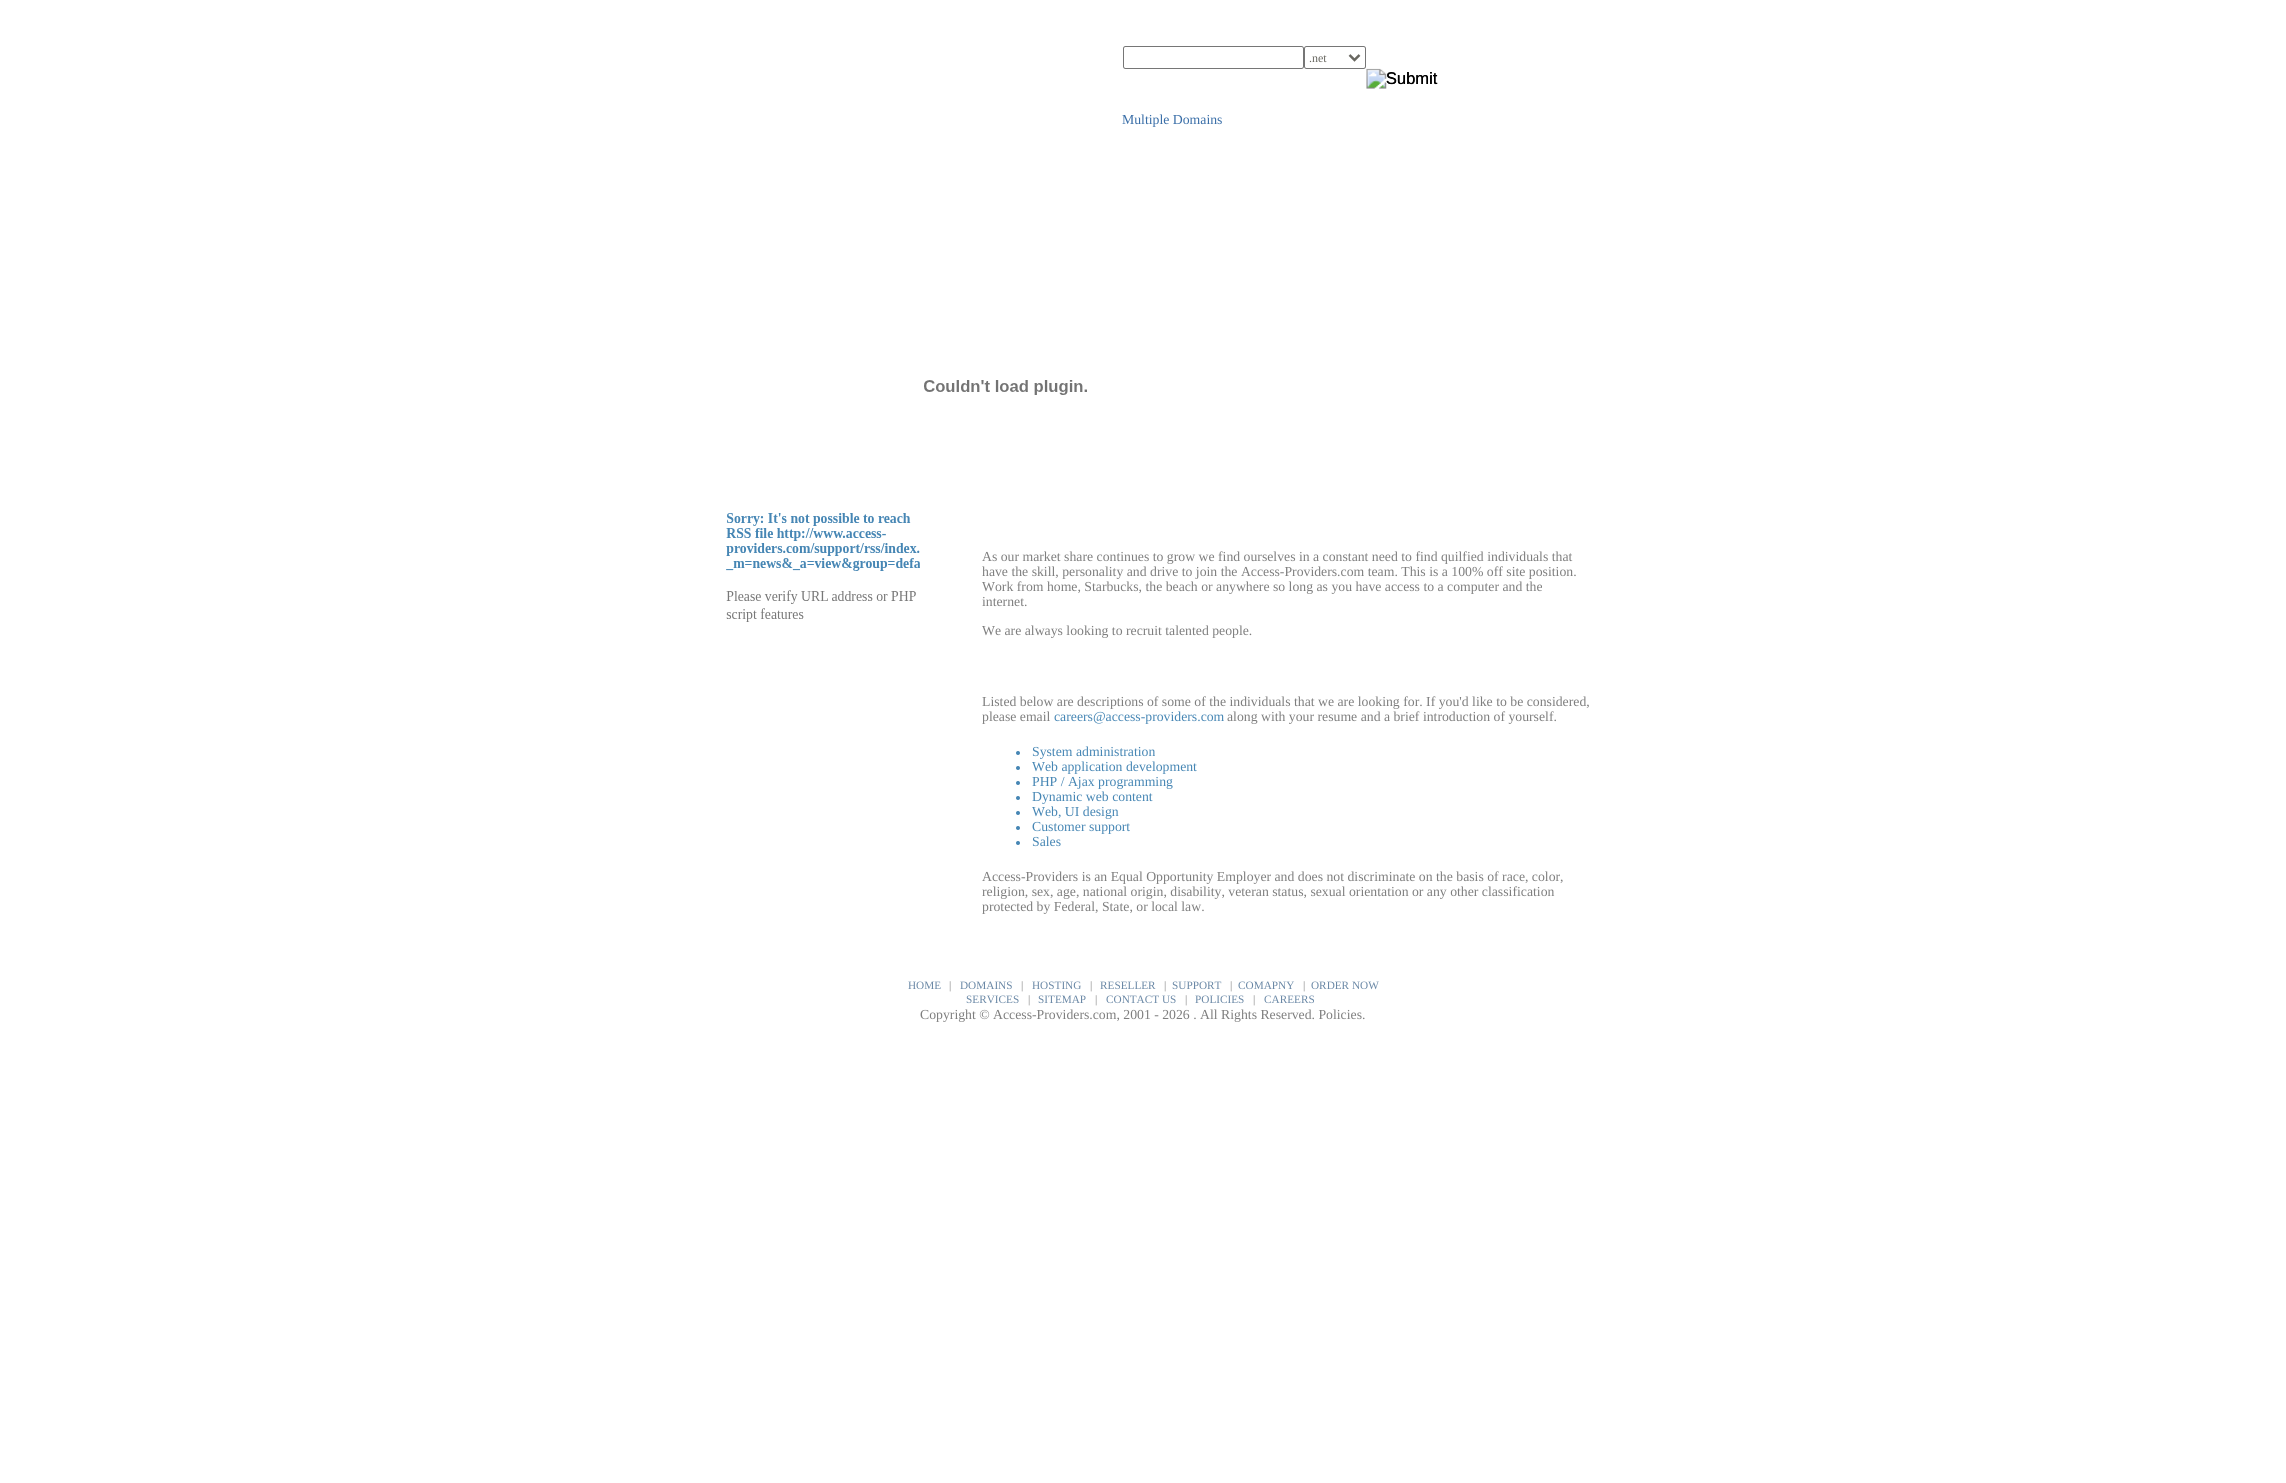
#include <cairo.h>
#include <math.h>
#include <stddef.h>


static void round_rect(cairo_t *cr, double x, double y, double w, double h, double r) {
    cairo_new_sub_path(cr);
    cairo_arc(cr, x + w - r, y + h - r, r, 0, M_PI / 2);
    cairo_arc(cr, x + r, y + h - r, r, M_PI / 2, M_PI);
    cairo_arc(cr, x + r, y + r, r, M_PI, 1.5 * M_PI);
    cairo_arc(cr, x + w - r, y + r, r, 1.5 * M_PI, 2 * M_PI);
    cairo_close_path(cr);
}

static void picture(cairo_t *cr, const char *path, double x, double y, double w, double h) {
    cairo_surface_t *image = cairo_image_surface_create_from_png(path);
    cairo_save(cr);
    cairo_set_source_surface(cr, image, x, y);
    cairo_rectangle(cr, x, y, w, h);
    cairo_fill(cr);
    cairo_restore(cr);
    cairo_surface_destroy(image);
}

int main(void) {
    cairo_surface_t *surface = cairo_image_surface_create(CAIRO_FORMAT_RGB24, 2286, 1483);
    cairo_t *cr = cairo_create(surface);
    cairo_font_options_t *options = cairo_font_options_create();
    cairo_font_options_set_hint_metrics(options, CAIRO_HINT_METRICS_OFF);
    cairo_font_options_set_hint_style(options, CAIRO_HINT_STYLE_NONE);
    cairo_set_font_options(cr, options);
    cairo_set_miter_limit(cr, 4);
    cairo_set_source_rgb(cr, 1, 1, 1);
    cairo_paint(cr);
    round_rect(cr, 1123.5, 46.5, 180, 22, 2);
    cairo_set_source_rgb(cr, 0.463, 0.463, 0.463);
    cairo_set_line_width(cr, 1);
    cairo_stroke(cr);
    round_rect(cr, 1304.5, 46.5, 61, 22, 2);
    cairo_stroke(cr);
    cairo_new_path(cr);
    cairo_move_to(cr, 1349.5, 55);
    cairo_line_to(cr, 1354.5, 60);
    cairo_line_to(cr, 1359.5, 55);
    cairo_set_source_rgb(cr, 0.408, 0.404, 0.376);
    cairo_set_line_width(cr, 2.5);
    cairo_stroke(cr);
    cairo_select_font_face(cr, "Liberation Serif", CAIRO_FONT_SLANT_NORMAL, CAIRO_FONT_WEIGHT_NORMAL);
    cairo_set_font_size(cr, 12);
    cairo_move_to(cr, 1309, 62);
    cairo_show_text(cr, ".net");
    picture(cr, "img1.png", 1366, 68, 72, 21);
    cairo_select_font_face(cr, "Liberation Sans", CAIRO_FONT_SLANT_NORMAL, CAIRO_FONT_WEIGHT_NORMAL);
    cairo_set_font_size(cr, 16.5);
    cairo_set_source_rgb(cr, 0, 0, 0);
    cairo_move_to(cr, 1386, 84);
    cairo_show_text(cr, "Submit");
    cairo_select_font_face(cr, "Liberation Serif", CAIRO_FONT_SLANT_NORMAL, CAIRO_FONT_WEIGHT_NORMAL);
    cairo_set_font_size(cr, 13.75);
    cairo_set_source_rgb(cr, 0.22, 0.427, 0.655);
    cairo_move_to(cr, 1122, 124);
    cairo_show_text(cr, "Multiple Domains");
    picture(cr, "img2.png", 924, 380, 163, 15);
    picture(cr, "img3.png", 726, 513, 194, 109);
    cairo_set_source_rgb(cr, 0.494, 0.494, 0.494);
    cairo_move_to(cr, 982, 561);
    cairo_show_text(cr, "As our market share continues to grow we find ourselves in a constant need to find quilfied individuals that");
    cairo_move_to(cr, 982, 576);
    cairo_show_text(cr, "have the skill, personality and drive to join the Access-Providers.com team. This is a 100% off site position.");
    cairo_move_to(cr, 982, 591);
    cairo_show_text(cr, "Work from home, Starbucks, the beach or anywhere so long as you have access to a computer and the");
    cairo_move_to(cr, 982, 606);
    cairo_show_text(cr, "internet.");
    cairo_move_to(cr, 982, 635);
    cairo_show_text(cr, "We are always looking to recruit talented people.");
    cairo_move_to(cr, 982, 706);
    cairo_show_text(cr, "Listed below are descriptions of some of the individuals that we are looking for. If you'd like to be considered,");
    cairo_move_to(cr, 982, 721);
    cairo_show_text(cr, "please email");
    cairo_set_source_rgb(cr, 0.275, 0.525, 0.706);
    cairo_move_to(cr, 1054, 721);
    cairo_show_text(cr, "careers@access-providers.com");
    cairo_set_source_rgb(cr, 0.494, 0.494, 0.494);
    cairo_move_to(cr, 1227, 721);
    cairo_show_text(cr, "along with your resume and a brief introduction of yourself.");
    cairo_set_source_rgb(cr, 0.275, 0.525, 0.706);
    cairo_new_path(cr);
    cairo_arc(cr, 1018, 753, 2, 0, 2 * M_PI);
    cairo_fill(cr);
    cairo_move_to(cr, 1032, 756);
    cairo_show_text(cr, "System administration");
    cairo_new_path(cr);
    cairo_arc(cr, 1018, 768, 2, 0, 2 * M_PI);
    cairo_fill(cr);
    cairo_move_to(cr, 1032, 771);
    cairo_show_text(cr, "Web application development");
    cairo_new_path(cr);
    cairo_arc(cr, 1018, 783, 2, 0, 2 * M_PI);
    cairo_fill(cr);
    cairo_move_to(cr, 1032, 786);
    cairo_show_text(cr, "PHP / Ajax programming");
    cairo_new_path(cr);
    cairo_arc(cr, 1018, 798, 2, 0, 2 * M_PI);
    cairo_fill(cr);
    cairo_move_to(cr, 1032, 801);
    cairo_show_text(cr, "Dynamic web content");
    cairo_new_path(cr);
    cairo_arc(cr, 1018, 813, 2, 0, 2 * M_PI);
    cairo_fill(cr);
    cairo_move_to(cr, 1032, 816);
    cairo_show_text(cr, "Web, UI design");
    cairo_new_path(cr);
    cairo_arc(cr, 1018, 828, 2, 0, 2 * M_PI);
    cairo_fill(cr);
    cairo_move_to(cr, 1032, 831);
    cairo_show_text(cr, "Customer support");
    cairo_new_path(cr);
    cairo_arc(cr, 1018, 843, 2, 0, 2 * M_PI);
    cairo_fill(cr);
    cairo_move_to(cr, 1032, 846);
    cairo_show_text(cr, "Sales");
    cairo_set_source_rgb(cr, 0.494, 0.494, 0.494);
    cairo_move_to(cr, 982, 881);
    cairo_show_text(cr, "Access-Providers is an Equal Opportunity Employer and does not discriminate on the basis of race, color,");
    cairo_move_to(cr, 982, 896);
    cairo_show_text(cr, "religion, sex, age, national origin, disability, veteran status, sexual orientation or any other classification");
    cairo_move_to(cr, 982, 911);
    cairo_show_text(cr, "protected by Federal, State, or local law.");
    cairo_set_font_size(cr, 11.25);
    cairo_set_source_rgb(cr, 0.412, 0.529, 0.647);
    cairo_move_to(cr, 908, 989);
    cairo_show_text(cr, "HOME");
    cairo_set_source_rgb(cr, 0.494, 0.494, 0.494);
    cairo_move_to(cr, 949, 989);
    cairo_show_text(cr, "|");
    cairo_set_source_rgb(cr, 0.412, 0.529, 0.647);
    cairo_move_to(cr, 960, 989);
    cairo_show_text(cr, "DOMAINS");
    cairo_set_source_rgb(cr, 0.494, 0.494, 0.494);
    cairo_move_to(cr, 1021, 989);
    cairo_show_text(cr, "|");
    cairo_set_source_rgb(cr, 0.412, 0.529, 0.647);
    cairo_move_to(cr, 1032, 989);
    cairo_show_text(cr, "HOSTING");
    cairo_set_source_rgb(cr, 0.494, 0.494, 0.494);
    cairo_move_to(cr, 1090, 989);
    cairo_show_text(cr, "|");
    cairo_set_source_rgb(cr, 0.412, 0.529, 0.647);
    cairo_move_to(cr, 1100, 989);
    cairo_show_text(cr, "RESELLER");
    cairo_set_source_rgb(cr, 0.494, 0.494, 0.494);
    cairo_move_to(cr, 1164, 989);
    cairo_show_text(cr, "|");
    cairo_set_source_rgb(cr, 0.412, 0.529, 0.647);
    cairo_move_to(cr, 1172, 989);
    cairo_show_text(cr, "SUPPORT");
    cairo_set_source_rgb(cr, 0.494, 0.494, 0.494);
    cairo_move_to(cr, 1230, 989);
    cairo_show_text(cr, "|");
    cairo_set_source_rgb(cr, 0.412, 0.529, 0.647);
    cairo_move_to(cr, 1238, 989);
    cairo_show_text(cr, "COMAPNY");
    cairo_set_source_rgb(cr, 0.494, 0.494, 0.494);
    cairo_move_to(cr, 1303, 989);
    cairo_show_text(cr, "|");
    cairo_set_source_rgb(cr, 0.412, 0.529, 0.647);
    cairo_move_to(cr, 1311, 989);
    cairo_show_text(cr, "ORDER NOW");
    cairo_move_to(cr, 966, 1003);
    cairo_show_text(cr, "SERVICES");
    cairo_set_source_rgb(cr, 0.494, 0.494, 0.494);
    cairo_move_to(cr, 1028, 1003);
    cairo_show_text(cr, "|");
    cairo_set_source_rgb(cr, 0.412, 0.529, 0.647);
    cairo_move_to(cr, 1038, 1003);
    cairo_show_text(cr, "SITEMAP");
    cairo_set_source_rgb(cr, 0.494, 0.494, 0.494);
    cairo_move_to(cr, 1095, 1003);
    cairo_show_text(cr, "|");
    cairo_set_source_rgb(cr, 0.412, 0.529, 0.647);
    cairo_move_to(cr, 1106, 1003);
    cairo_show_text(cr, "CONTACT US");
    cairo_set_source_rgb(cr, 0.494, 0.494, 0.494);
    cairo_move_to(cr, 1185, 1003);
    cairo_show_text(cr, "|");
    cairo_set_source_rgb(cr, 0.412, 0.529, 0.647);
    cairo_move_to(cr, 1195, 1003);
    cairo_show_text(cr, "POLICIES");
    cairo_set_source_rgb(cr, 0.494, 0.494, 0.494);
    cairo_move_to(cr, 1253, 1003);
    cairo_show_text(cr, "|");
    cairo_set_source_rgb(cr, 0.412, 0.529, 0.647);
    cairo_move_to(cr, 1264, 1003);
    cairo_show_text(cr, "CAREERS");
    cairo_set_font_size(cr, 13.75);
    cairo_set_source_rgb(cr, 0.494, 0.494, 0.494);
    cairo_move_to(cr, 920, 1019);
    cairo_show_text(cr, "Copyright © Access-Providers.com, 2001 - 2026 . All Rights Reserved. Policies.");
    cairo_surface_write_to_png(surface, "page.png");
    cairo_font_options_destroy(options);
    cairo_destroy(cr);
    cairo_surface_destroy(surface);
    return 0;
}
